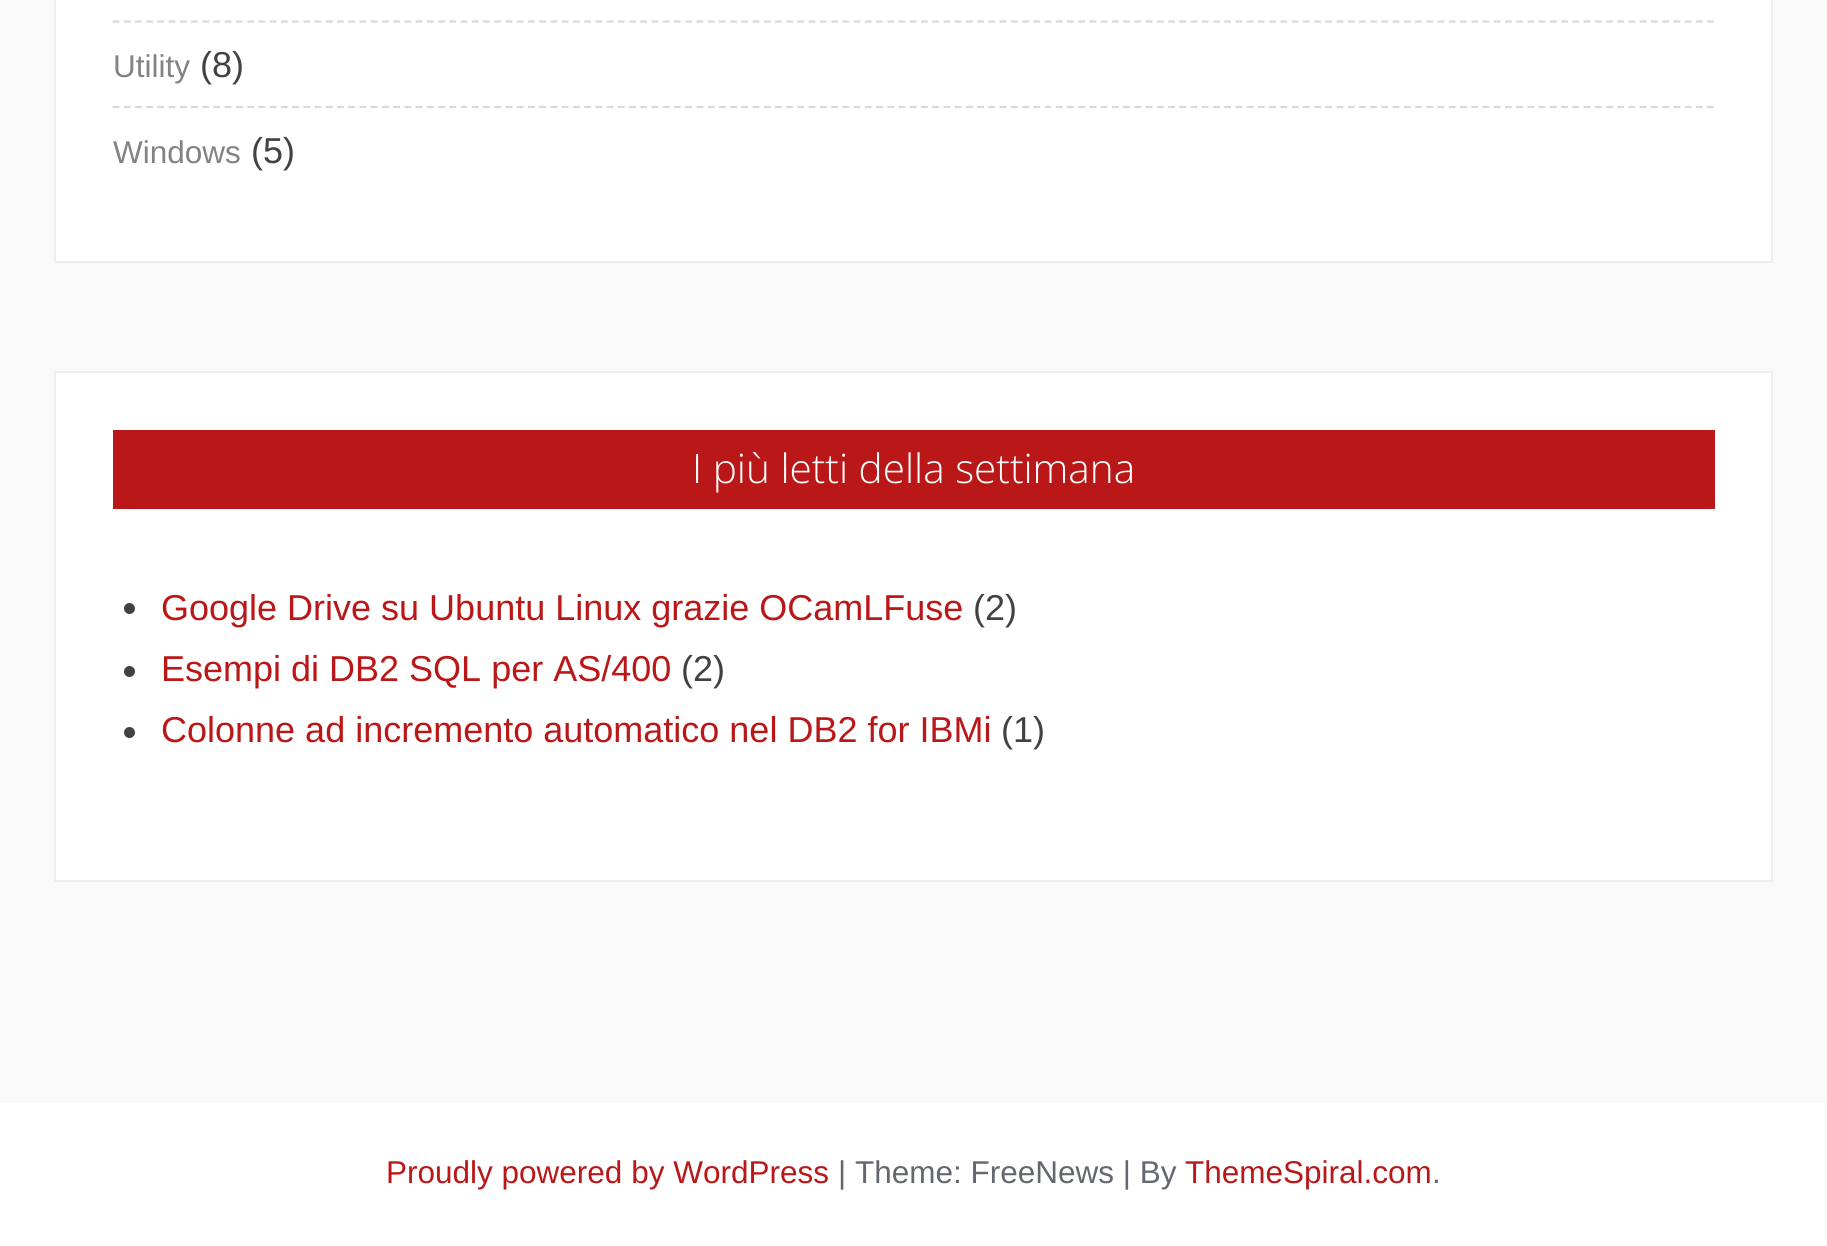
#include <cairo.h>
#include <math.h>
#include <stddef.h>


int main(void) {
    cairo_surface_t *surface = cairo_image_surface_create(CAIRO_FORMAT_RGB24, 1827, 1246);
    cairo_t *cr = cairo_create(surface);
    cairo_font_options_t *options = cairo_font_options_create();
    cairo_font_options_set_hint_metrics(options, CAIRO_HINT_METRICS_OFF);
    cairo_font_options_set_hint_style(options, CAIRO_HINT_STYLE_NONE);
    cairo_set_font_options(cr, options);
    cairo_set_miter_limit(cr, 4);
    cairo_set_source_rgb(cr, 0.973, 0.973, 0.973);
    cairo_paint(cr);
    cairo_set_source_rgb(cr, 1, 1, 1);
    cairo_rectangle(cr, 55, -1, 1717, 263);
    cairo_fill_preserve(cr);
    cairo_set_source_rgb(cr, 0.933, 0.933, 0.933);
    cairo_stroke(cr);
    cairo_new_path(cr);
    cairo_move_to(cr, 112.5, 21.5);
    cairo_line_to(cr, 1714.5, 21.5);
    cairo_set_source_rgb(cr, 0.851, 0.851, 0.851);
    cairo_set_line_width(cr, 2.2);
    cairo_set_dash(cr, (double[]){6.75, 4.48}, 2, 0);
    cairo_stroke(cr);
    cairo_new_path(cr);
    cairo_move_to(cr, 112.5, 107);
    cairo_line_to(cr, 1714.5, 107);
    cairo_stroke(cr);
    cairo_select_font_face(cr, "Liberation Sans", CAIRO_FONT_SLANT_NORMAL, CAIRO_FONT_WEIGHT_NORMAL);
    cairo_set_font_size(cr, 31.5);
    cairo_set_source_rgb(cr, 0.514, 0.514, 0.514);
    cairo_move_to(cr, 113, 77);
    cairo_show_text(cr, "Utility");
    cairo_set_font_size(cr, 36);
    cairo_set_source_rgb(cr, 0.259, 0.259, 0.259);
    cairo_move_to(cr, 200, 77);
    cairo_show_text(cr, "(8)");
    cairo_set_font_size(cr, 31.5);
    cairo_set_source_rgb(cr, 0.514, 0.514, 0.514);
    cairo_move_to(cr, 113, 163);
    cairo_show_text(cr, "Windows");
    cairo_set_font_size(cr, 36);
    cairo_set_source_rgb(cr, 0.259, 0.259, 0.259);
    cairo_move_to(cr, 251, 163);
    cairo_show_text(cr, "(5)");
    cairo_set_source_rgb(cr, 1, 1, 1);
    cairo_rectangle(cr, 55, 372, 1717, 509);
    cairo_fill_preserve(cr);
    cairo_set_source_rgb(cr, 0.933, 0.933, 0.933);
    cairo_set_line_width(cr, 2);
    cairo_set_dash(cr, NULL, 0, 0);
    cairo_stroke(cr);
    cairo_set_source_rgb(cr, 0.729, 0.094, 0.094);
    cairo_rectangle(cr, 113, 430, 1602, 79);
    cairo_fill(cr);
    cairo_select_font_face(cr, "Open Sans Light", CAIRO_FONT_SLANT_NORMAL, CAIRO_FONT_WEIGHT_NORMAL);
    cairo_set_font_size(cr, 40.5);
    cairo_set_source_rgb(cr, 1, 1, 1);
    cairo_move_to(cr, 692, 483);
    cairo_show_text(cr, "I più letti della settimana");
    cairo_set_source_rgb(cr, 0.259, 0.259, 0.259);
    cairo_new_path(cr);
    cairo_arc(cr, 129.5, 608.5, 5.5, 0, 2 * M_PI);
    cairo_fill(cr);
    cairo_select_font_face(cr, "Liberation Sans", CAIRO_FONT_SLANT_NORMAL, CAIRO_FONT_WEIGHT_NORMAL);
    cairo_set_font_size(cr, 36);
    cairo_set_source_rgb(cr, 0.729, 0.094, 0.094);
    cairo_move_to(cr, 161, 620);
    cairo_show_text(cr, "Google Drive su Ubuntu Linux grazie OCamLFuse");
    cairo_set_source_rgb(cr, 0.259, 0.259, 0.259);
    cairo_move_to(cr, 973, 620);
    cairo_show_text(cr, "(2)");
    cairo_new_path(cr);
    cairo_arc(cr, 129.5, 671.5, 5.5, 0, 2 * M_PI);
    cairo_fill(cr);
    cairo_set_source_rgb(cr, 0.729, 0.094, 0.094);
    cairo_move_to(cr, 161, 681);
    cairo_show_text(cr, "Esempi di DB2 SQL per AS/400");
    cairo_set_source_rgb(cr, 0.259, 0.259, 0.259);
    cairo_move_to(cr, 681, 681);
    cairo_show_text(cr, "(2)");
    cairo_new_path(cr);
    cairo_arc(cr, 129.5, 732.5, 5.5, 0, 2 * M_PI);
    cairo_fill(cr);
    cairo_set_source_rgb(cr, 0.729, 0.094, 0.094);
    cairo_move_to(cr, 161, 742);
    cairo_show_text(cr, "Colonne ad incremento automatico nel DB2 for IBMi");
    cairo_set_source_rgb(cr, 0.259, 0.259, 0.259);
    cairo_move_to(cr, 1001, 742);
    cairo_show_text(cr, "(1)");
    cairo_set_source_rgb(cr, 1, 1, 1);
    cairo_rectangle(cr, 0, 1103, 1827, 143);
    cairo_fill(cr);
    cairo_set_font_size(cr, 31.5);
    cairo_set_source_rgb(cr, 0.729, 0.094, 0.094);
    cairo_move_to(cr, 386, 1183);
    cairo_show_text(cr, "Proudly powered by WordPress");
    cairo_set_source_rgb(cr, 0.392, 0.404, 0.439);
    cairo_move_to(cr, 838, 1183);
    cairo_show_text(cr, "| Theme: FreeNews | By");
    cairo_set_source_rgb(cr, 0.729, 0.094, 0.094);
    cairo_move_to(cr, 1185, 1183);
    cairo_show_text(cr, "ThemeSpiral.com");
    cairo_set_source_rgb(cr, 0.392, 0.404, 0.439);
    cairo_move_to(cr, 1432, 1183);
    cairo_show_text(cr, ".");
    cairo_surface_write_to_png(surface, "page.png");
    cairo_font_options_destroy(options);
    cairo_destroy(cr);
    cairo_surface_destroy(surface);
    return 0;
}
